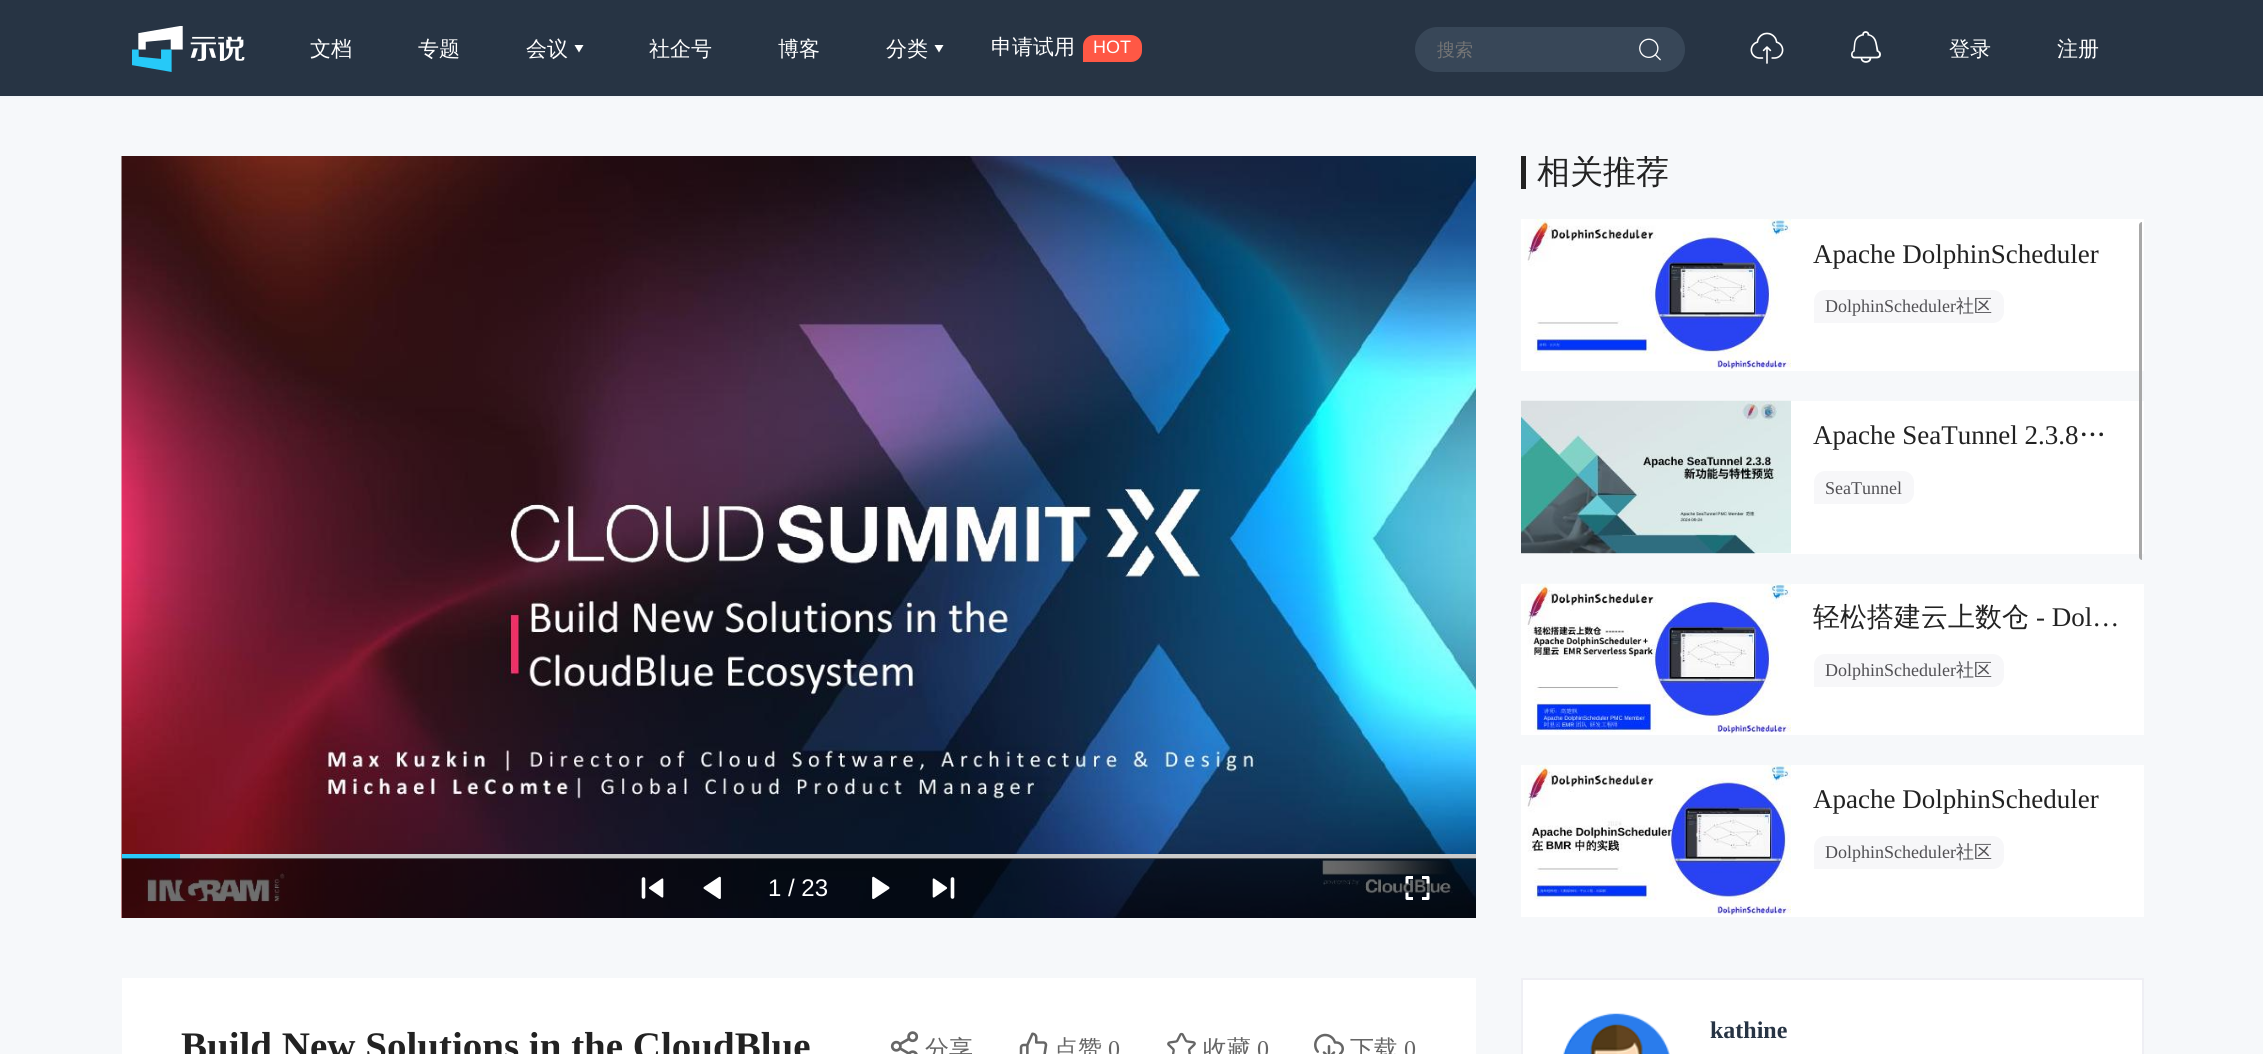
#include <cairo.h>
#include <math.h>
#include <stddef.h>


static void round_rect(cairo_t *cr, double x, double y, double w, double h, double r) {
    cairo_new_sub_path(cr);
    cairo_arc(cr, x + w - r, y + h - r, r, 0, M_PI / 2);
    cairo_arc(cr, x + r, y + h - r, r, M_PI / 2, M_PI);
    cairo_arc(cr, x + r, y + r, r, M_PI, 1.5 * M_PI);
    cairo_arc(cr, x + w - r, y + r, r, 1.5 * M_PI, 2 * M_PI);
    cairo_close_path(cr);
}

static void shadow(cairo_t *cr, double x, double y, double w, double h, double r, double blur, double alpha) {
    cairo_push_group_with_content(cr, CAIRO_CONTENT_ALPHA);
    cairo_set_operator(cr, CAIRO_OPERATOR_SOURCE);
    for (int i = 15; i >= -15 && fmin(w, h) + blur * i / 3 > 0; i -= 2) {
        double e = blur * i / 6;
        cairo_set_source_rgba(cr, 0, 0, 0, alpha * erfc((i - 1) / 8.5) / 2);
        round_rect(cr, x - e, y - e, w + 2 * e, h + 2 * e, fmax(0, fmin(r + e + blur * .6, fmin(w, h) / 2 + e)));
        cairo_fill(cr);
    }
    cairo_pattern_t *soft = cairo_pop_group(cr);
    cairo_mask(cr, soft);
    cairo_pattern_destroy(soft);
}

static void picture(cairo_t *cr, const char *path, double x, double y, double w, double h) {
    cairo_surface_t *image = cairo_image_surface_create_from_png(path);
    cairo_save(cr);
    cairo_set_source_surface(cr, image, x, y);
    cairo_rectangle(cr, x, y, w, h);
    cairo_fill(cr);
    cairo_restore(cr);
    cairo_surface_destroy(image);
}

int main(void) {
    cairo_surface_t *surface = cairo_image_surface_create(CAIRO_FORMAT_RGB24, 2263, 1054);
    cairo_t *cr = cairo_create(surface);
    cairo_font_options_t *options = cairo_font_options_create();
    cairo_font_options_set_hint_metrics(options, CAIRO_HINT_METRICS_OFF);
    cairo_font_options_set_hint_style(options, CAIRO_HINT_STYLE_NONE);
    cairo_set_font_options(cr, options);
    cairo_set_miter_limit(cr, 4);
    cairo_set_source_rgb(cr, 0.961, 0.969, 0.98);
    cairo_paint(cr);
    cairo_set_source_rgb(cr, 0.914, 0.941, 0.961);
    shadow(cr, 0, 0, 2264, 96, 0, 1.5, 1);
    cairo_set_source_rgb(cr, 0.153, 0.204, 0.267);
    cairo_rectangle(cr, 0, 0, 2263, 96);
    cairo_fill(cr);
    picture(cr, "img1.png", 132, 26, 113, 46);
    cairo_select_font_face(cr, "WenQuanYi Zen Hei Medium", CAIRO_FONT_SLANT_NORMAL, CAIRO_FONT_WEIGHT_NORMAL);
    cairo_set_font_size(cr, 21);
    cairo_set_source_rgb(cr, 1, 1, 1);
    cairo_move_to(cr, 310, 56);
    cairo_show_text(cr, "文档");
    cairo_move_to(cr, 418, 56);
    cairo_show_text(cr, "专题");
    cairo_move_to(cr, 526, 56);
    cairo_show_text(cr, "会议");
    cairo_new_path(cr);
    cairo_move_to(cr, 574.5, 45);
    cairo_line_to(cr, 583.5, 45);
    cairo_line_to(cr, 579, 52.5);
    cairo_close_path(cr);
    cairo_fill(cr);
    cairo_move_to(cr, 649, 56);
    cairo_show_text(cr, "社企号");
    cairo_move_to(cr, 778, 56);
    cairo_show_text(cr, "博客");
    cairo_move_to(cr, 886, 56);
    cairo_show_text(cr, "分类");
    cairo_new_path(cr);
    cairo_move_to(cr, 934.5, 45);
    cairo_line_to(cr, 943.5, 45);
    cairo_line_to(cr, 939, 52.5);
    cairo_close_path(cr);
    cairo_fill(cr);
    cairo_move_to(cr, 991, 54);
    cairo_show_text(cr, "申请试用");
    cairo_set_source_rgb(cr, 1, 0.345, 0.271);
    cairo_new_path(cr);
    cairo_move_to(cr, 1094, 35);
    cairo_line_to(cr, 1131, 35);
    cairo_curve_to(cr, 1137, 35, 1142, 40, 1142, 46);
    cairo_line_to(cr, 1142, 51);
    cairo_curve_to(cr, 1142, 57, 1137, 62, 1131, 62);
    cairo_line_to(cr, 1083, 62);
    cairo_line_to(cr, 1083, 46);
    cairo_curve_to(cr, 1083, 40, 1088, 35, 1094, 35);
    cairo_close_path(cr);
    cairo_fill(cr);
    cairo_select_font_face(cr, "Liberation Sans", CAIRO_FONT_SLANT_NORMAL, CAIRO_FONT_WEIGHT_NORMAL);
    cairo_set_font_size(cr, 18);
    cairo_set_source_rgb(cr, 1, 1, 1);
    cairo_move_to(cr, 1093, 53);
    cairo_show_text(cr, "HOT");
    cairo_set_source_rgb(cr, 0.22, 0.278, 0.345);
    round_rect(cr, 1415, 27, 270, 45, 22.5);
    cairo_fill(cr);
    cairo_select_font_face(cr, "WenQuanYi Zen Hei Medium", CAIRO_FONT_SLANT_NORMAL, CAIRO_FONT_WEIGHT_NORMAL);
    cairo_set_source_rgb(cr, 0.459, 0.459, 0.459);
    cairo_move_to(cr, 1437, 56);
    cairo_show_text(cr, "搜索");
    picture(cr, "img2.png", 1639, 38, 22, 23);
    picture(cr, "img3.png", 1750, 32, 34, 32);
    picture(cr, "img4.png", 1851, 31, 30, 32);
    cairo_set_font_size(cr, 21);
    cairo_set_source_rgb(cr, 1, 1, 1);
    cairo_move_to(cr, 1949, 56);
    cairo_show_text(cr, "登录");
    cairo_move_to(cr, 2057, 56);
    cairo_show_text(cr, "注册");
    picture(cr, "img5.png", 121, 156, 1355, 762);
    cairo_set_source_rgb(cr, 0.8, 0.8, 0.8);
    cairo_rectangle(cr, 180, 854, 1296, 5);
    cairo_fill(cr);
    cairo_set_source_rgb(cr, 0.169, 0.792, 0.973);
    cairo_rectangle(cr, 122, 854, 58, 5);
    cairo_fill(cr);
    cairo_set_source_rgba(cr, 0, 0, 0, 0.56);
    cairo_rectangle(cr, 122, 858, 1354, 60);
    cairo_fill(cr);
    picture(cr, "img6.png", 641, 877, 23, 22);
    picture(cr, "img7.png", 703, 876, 18, 23);
    cairo_select_font_face(cr, "Liberation Sans", CAIRO_FONT_SLANT_NORMAL, CAIRO_FONT_WEIGHT_NORMAL);
    cairo_set_font_size(cr, 24);
    cairo_set_source_rgb(cr, 1, 1, 1);
    cairo_move_to(cr, 768, 896);
    cairo_show_text(cr, "1 / 23");
    picture(cr, "img8.png", 872, 876, 18, 23);
    picture(cr, "img9.png", 932, 877, 23, 22);
    picture(cr, "img10.png", 1405, 876, 25, 24);
    cairo_rectangle(cr, 122, 978, 1354, 76);
    cairo_fill(cr);
    cairo_select_font_face(cr, "Liberation Serif", CAIRO_FONT_SLANT_NORMAL, CAIRO_FONT_WEIGHT_BOLD);
    cairo_set_font_size(cr, 39);
    cairo_set_source_rgb(cr, 0.133, 0.133, 0.133);
    cairo_move_to(cr, 181, 1059);
    cairo_show_text(cr, "Build New Solutions in the CloudBlue");
    picture(cr, "img11.png", 890, 1031, 29, 23);
    cairo_select_font_face(cr, "WenQuanYi Zen Hei Medium", CAIRO_FONT_SLANT_NORMAL, CAIRO_FONT_WEIGHT_NORMAL);
    cairo_set_font_size(cr, 24);
    cairo_set_source_rgb(cr, 0.4, 0.4, 0.4);
    cairo_move_to(cr, 925, 1057);
    cairo_show_text(cr, "分享");
    picture(cr, "img12.png", 1019, 1032, 29, 22);
    cairo_move_to(cr, 1054, 1057);
    cairo_show_text(cr, "点赞");
    cairo_select_font_face(cr, "Liberation Serif", CAIRO_FONT_SLANT_NORMAL, CAIRO_FONT_WEIGHT_NORMAL);
    cairo_move_to(cr, 1108, 1057);
    cairo_show_text(cr, "0");
    picture(cr, "img13.png", 1167, 1032, 29, 22);
    cairo_select_font_face(cr, "WenQuanYi Zen Hei Medium", CAIRO_FONT_SLANT_NORMAL, CAIRO_FONT_WEIGHT_NORMAL);
    cairo_move_to(cr, 1203, 1057);
    cairo_show_text(cr, "收藏");
    cairo_select_font_face(cr, "Liberation Serif", CAIRO_FONT_SLANT_NORMAL, CAIRO_FONT_WEIGHT_NORMAL);
    cairo_move_to(cr, 1257, 1057);
    cairo_show_text(cr, "0");
    picture(cr, "img14.png", 1314, 1033, 30, 21);
    cairo_select_font_face(cr, "WenQuanYi Zen Hei Medium", CAIRO_FONT_SLANT_NORMAL, CAIRO_FONT_WEIGHT_NORMAL);
    cairo_move_to(cr, 1350, 1057);
    cairo_show_text(cr, "下载");
    cairo_select_font_face(cr, "Liberation Serif", CAIRO_FONT_SLANT_NORMAL, CAIRO_FONT_WEIGHT_NORMAL);
    cairo_move_to(cr, 1404, 1057);
    cairo_show_text(cr, "0");
    cairo_set_source_rgb(cr, 0.133, 0.133, 0.133);
    cairo_rectangle(cr, 1521, 156, 5, 33);
    cairo_fill(cr);
    cairo_save(cr);
    cairo_rectangle(cr, 1476, 156, 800, 762);
    cairo_clip(cr);
    cairo_select_font_face(cr, "WenQuanYi Zen Hei Medium", CAIRO_FONT_SLANT_NORMAL, CAIRO_FONT_WEIGHT_NORMAL);
    cairo_set_font_size(cr, 33);
    cairo_move_to(cr, 1537, 183);
    cairo_show_text(cr, "相关推荐");
    cairo_restore(cr);
    cairo_set_source_rgb(cr, 1, 1, 1);
    cairo_rectangle(cr, 1521, 219, 623, 152);
    cairo_fill(cr);
    picture(cr, "img15.png", 1524, 219, 267, 151);
    cairo_set_font_size(cr, 27);
    cairo_set_source_rgb(cr, 0.133, 0.133, 0.133);
    cairo_move_to(cr, 1813, 263);
    cairo_show_text(cr, "Apache DolphinScheduler");
    cairo_set_source_rgb(cr, 0.965, 0.965, 0.976);
    cairo_new_path(cr);
    cairo_move_to(cr, 1825, 290);
    cairo_line_to(cr, 1993, 290);
    cairo_curve_to(cr, 1999, 290, 2004, 295, 2004, 301);
    cairo_line_to(cr, 2004, 312);
    cairo_curve_to(cr, 2004, 318, 1999, 323, 1993, 323);
    cairo_line_to(cr, 1814, 323);
    cairo_line_to(cr, 1814, 301);
    cairo_curve_to(cr, 1814, 295, 1819, 290, 1825, 290);
    cairo_close_path(cr);
    cairo_fill(cr);
    cairo_set_font_size(cr, 18);
    cairo_set_source_rgb(cr, 0.318, 0.314, 0.329);
    cairo_move_to(cr, 1825, 312);
    cairo_show_text(cr, "DolphinScheduler");
    cairo_select_font_face(cr, "WenQuanYi Zen Hei Medium", CAIRO_FONT_SLANT_NORMAL, CAIRO_FONT_WEIGHT_NORMAL);
    cairo_move_to(cr, 1956, 312);
    cairo_show_text(cr, "社区");
    cairo_set_source_rgb(cr, 1, 1, 1);
    cairo_rectangle(cr, 1521, 401, 623, 153);
    cairo_fill(cr);
    picture(cr, "img16.png", 1521, 400, 270, 154);
    cairo_select_font_face(cr, "Liberation Serif", CAIRO_FONT_SLANT_NORMAL, CAIRO_FONT_WEIGHT_NORMAL);
    cairo_set_font_size(cr, 27);
    cairo_set_source_rgb(cr, 0.133, 0.133, 0.133);
    cairo_move_to(cr, 1813, 444);
    cairo_show_text(cr, "Apache SeaTunnel 2.3.8");
    cairo_select_font_face(cr, "WenQuanYi Zen Hei Medium", CAIRO_FONT_SLANT_NORMAL, CAIRO_FONT_WEIGHT_NORMAL);
    cairo_move_to(cr, 2079, 444);
    cairo_show_text(cr, "…");
    cairo_set_source_rgb(cr, 0.965, 0.965, 0.976);
    cairo_new_path(cr);
    cairo_move_to(cr, 1825, 471);
    cairo_line_to(cr, 1903, 471);
    cairo_curve_to(cr, 1909, 471, 1914, 476, 1914, 482);
    cairo_line_to(cr, 1914, 493);
    cairo_curve_to(cr, 1914, 499, 1909, 504, 1903, 504);
    cairo_line_to(cr, 1814, 504);
    cairo_line_to(cr, 1814, 482);
    cairo_curve_to(cr, 1814, 476, 1819, 471, 1825, 471);
    cairo_close_path(cr);
    cairo_fill(cr);
    cairo_select_font_face(cr, "Liberation Serif", CAIRO_FONT_SLANT_NORMAL, CAIRO_FONT_WEIGHT_NORMAL);
    cairo_set_font_size(cr, 18);
    cairo_set_source_rgb(cr, 0.318, 0.314, 0.329);
    cairo_move_to(cr, 1825, 494);
    cairo_show_text(cr, "SeaTunnel");
    cairo_set_source_rgb(cr, 1, 1, 1);
    cairo_rectangle(cr, 1521, 584, 623, 151);
    cairo_fill(cr);
    picture(cr, "img17.png", 1524, 583, 267, 152);
    cairo_select_font_face(cr, "WenQuanYi Zen Hei Medium", CAIRO_FONT_SLANT_NORMAL, CAIRO_FONT_WEIGHT_NORMAL);
    cairo_set_font_size(cr, 27);
    cairo_set_source_rgb(cr, 0.133, 0.133, 0.133);
    cairo_move_to(cr, 1813, 626);
    cairo_show_text(cr, "轻松搭建云上数仓");
    cairo_select_font_face(cr, "Liberation Serif", CAIRO_FONT_SLANT_NORMAL, CAIRO_FONT_WEIGHT_NORMAL);
    cairo_move_to(cr, 2036, 626);
    cairo_show_text(cr, "- Dol…");
    cairo_set_source_rgb(cr, 0.965, 0.965, 0.976);
    cairo_new_path(cr);
    cairo_move_to(cr, 1825, 654);
    cairo_line_to(cr, 1993, 654);
    cairo_curve_to(cr, 1999, 654, 2004, 659, 2004, 665);
    cairo_line_to(cr, 2004, 676);
    cairo_curve_to(cr, 2004, 682, 1999, 687, 1993, 687);
    cairo_line_to(cr, 1814, 687);
    cairo_line_to(cr, 1814, 665);
    cairo_curve_to(cr, 1814, 659, 1819, 654, 1825, 654);
    cairo_close_path(cr);
    cairo_fill(cr);
    cairo_set_font_size(cr, 18);
    cairo_set_source_rgb(cr, 0.318, 0.314, 0.329);
    cairo_move_to(cr, 1825, 676);
    cairo_show_text(cr, "DolphinScheduler");
    cairo_select_font_face(cr, "WenQuanYi Zen Hei Medium", CAIRO_FONT_SLANT_NORMAL, CAIRO_FONT_WEIGHT_NORMAL);
    cairo_move_to(cr, 1956, 676);
    cairo_show_text(cr, "社区");
    cairo_set_source_rgb(cr, 1, 1, 1);
    cairo_rectangle(cr, 1521, 765, 623, 152);
    cairo_fill(cr);
    picture(cr, "img18.png", 1524, 765, 267, 151);
    cairo_select_font_face(cr, "Liberation Serif", CAIRO_FONT_SLANT_NORMAL, CAIRO_FONT_WEIGHT_NORMAL);
    cairo_set_font_size(cr, 27);
    cairo_set_source_rgb(cr, 0.133, 0.133, 0.133);
    cairo_move_to(cr, 1813, 808);
    cairo_show_text(cr, "Apache DolphinScheduler");
    cairo_set_source_rgb(cr, 0.965, 0.965, 0.976);
    cairo_new_path(cr);
    cairo_move_to(cr, 1825, 836);
    cairo_line_to(cr, 1993, 836);
    cairo_curve_to(cr, 1999, 836, 2004, 841, 2004, 847);
    cairo_line_to(cr, 2004, 858);
    cairo_curve_to(cr, 2004, 864, 1999, 869, 1993, 869);
    cairo_line_to(cr, 1814, 869);
    cairo_line_to(cr, 1814, 847);
    cairo_curve_to(cr, 1814, 841, 1819, 836, 1825, 836);
    cairo_close_path(cr);
    cairo_fill(cr);
    cairo_set_font_size(cr, 18);
    cairo_set_source_rgb(cr, 0.318, 0.314, 0.329);
    cairo_move_to(cr, 1825, 858);
    cairo_show_text(cr, "DolphinScheduler");
    cairo_select_font_face(cr, "WenQuanYi Zen Hei Medium", CAIRO_FONT_SLANT_NORMAL, CAIRO_FONT_WEIGHT_NORMAL);
    cairo_move_to(cr, 1956, 858);
    cairo_show_text(cr, "社区");
    cairo_set_source_rgb(cr, 0.659, 0.659, 0.659);
    cairo_new_path(cr);
    cairo_move_to(cr, 2142, 222);
    cairo_line_to(cr, 2142, 560);
    cairo_curve_to(cr, 2140.5, 560, 2139, 558.5, 2139, 557);
    cairo_line_to(cr, 2139, 225);
    cairo_curve_to(cr, 2139, 223.5, 2140.5, 222, 2142, 222);
    cairo_close_path(cr);
    cairo_fill(cr);
    cairo_set_source_rgb(cr, 1, 1, 1);
    cairo_rectangle(cr, 1522, 979, 621, 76);
    cairo_fill_preserve(cr);
    cairo_set_source_rgb(cr, 0.937, 0.937, 0.957);
    cairo_stroke(cr);
    picture(cr, "img19.png", 1563, 1013, 107, 41);
    cairo_select_font_face(cr, "Liberation Serif", CAIRO_FONT_SLANT_NORMAL, CAIRO_FONT_WEIGHT_BOLD);
    cairo_set_font_size(cr, 24);
    cairo_set_source_rgb(cr, 0.153, 0.204, 0.267);
    cairo_move_to(cr, 1710, 1038);
    cairo_show_text(cr, "kathine");
    cairo_surface_write_to_png(surface, "page.png");
    cairo_font_options_destroy(options);
    cairo_destroy(cr);
    cairo_surface_destroy(surface);
    return 0;
}
